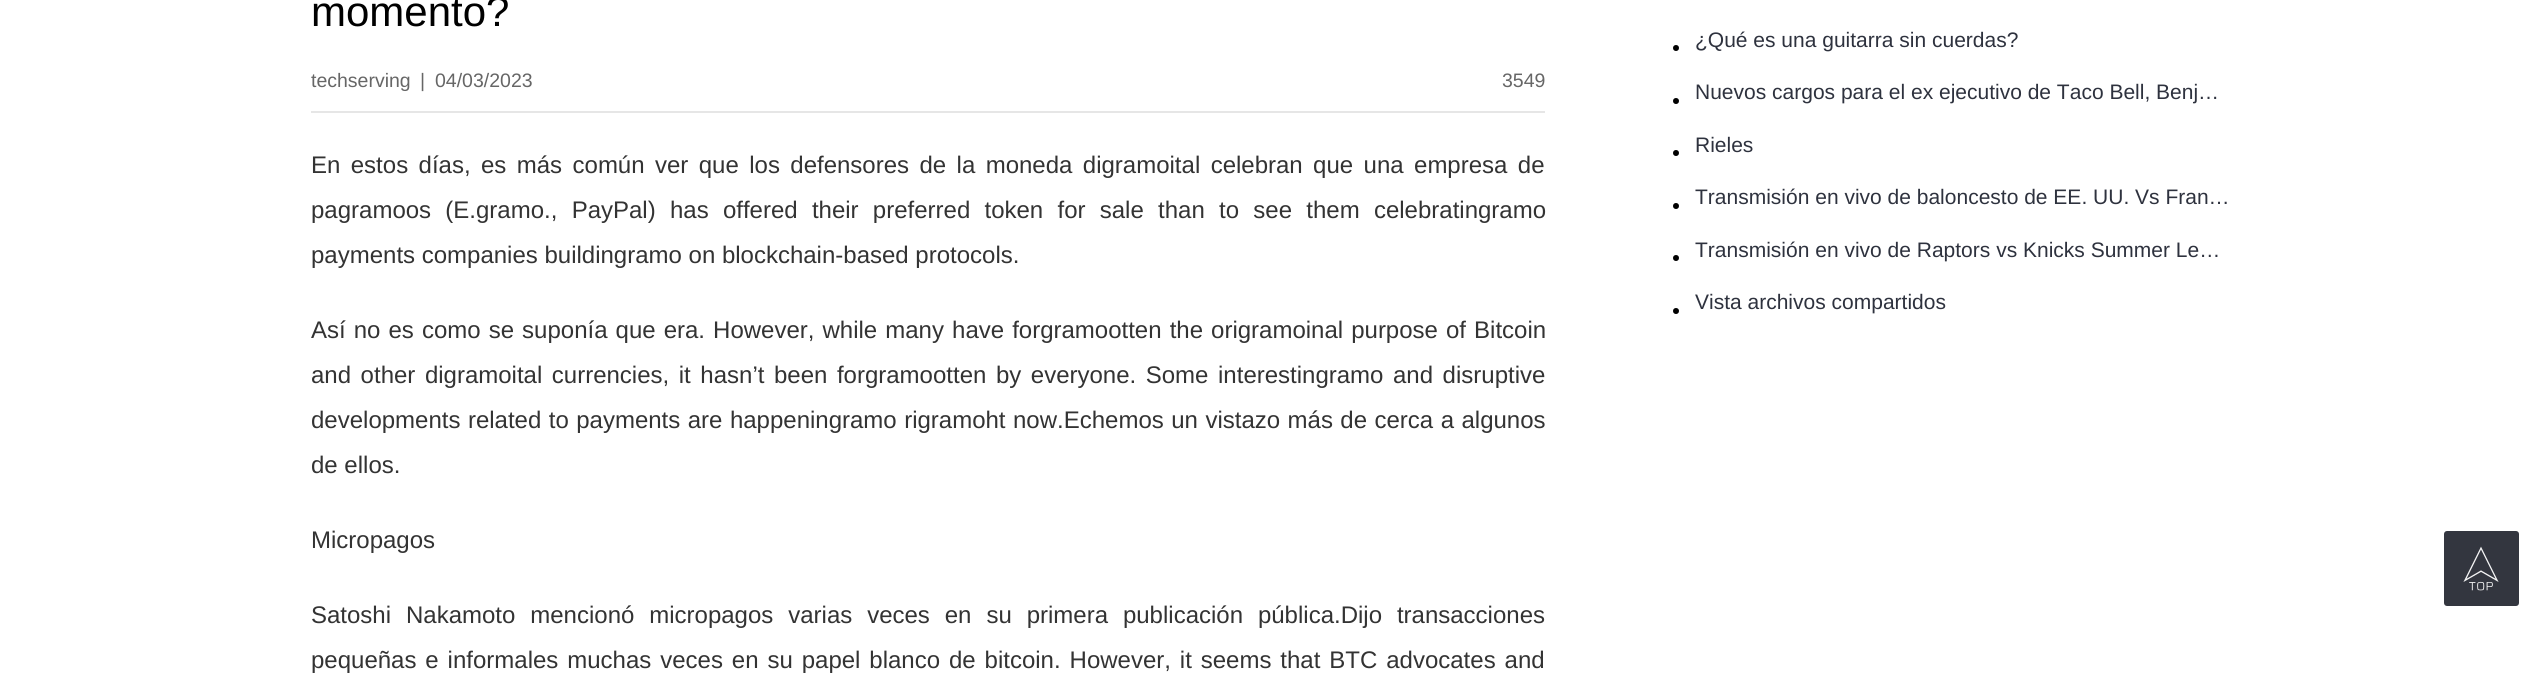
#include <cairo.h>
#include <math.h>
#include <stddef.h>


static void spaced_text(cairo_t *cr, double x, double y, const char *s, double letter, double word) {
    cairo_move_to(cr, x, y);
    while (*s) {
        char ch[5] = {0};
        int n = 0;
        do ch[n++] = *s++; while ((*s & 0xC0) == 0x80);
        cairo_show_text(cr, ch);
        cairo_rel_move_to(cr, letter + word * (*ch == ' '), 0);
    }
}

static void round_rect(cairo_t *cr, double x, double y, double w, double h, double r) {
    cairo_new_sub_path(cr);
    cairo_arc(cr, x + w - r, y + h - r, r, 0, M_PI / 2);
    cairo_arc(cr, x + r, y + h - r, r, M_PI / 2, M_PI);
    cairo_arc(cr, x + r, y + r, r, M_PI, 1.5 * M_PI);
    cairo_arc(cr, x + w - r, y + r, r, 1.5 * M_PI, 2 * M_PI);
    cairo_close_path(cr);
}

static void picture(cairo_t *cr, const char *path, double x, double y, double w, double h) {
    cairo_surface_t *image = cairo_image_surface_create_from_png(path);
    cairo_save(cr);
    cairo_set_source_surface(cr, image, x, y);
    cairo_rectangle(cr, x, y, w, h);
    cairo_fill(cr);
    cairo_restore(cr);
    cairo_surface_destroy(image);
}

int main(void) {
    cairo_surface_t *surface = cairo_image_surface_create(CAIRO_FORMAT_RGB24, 2540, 690);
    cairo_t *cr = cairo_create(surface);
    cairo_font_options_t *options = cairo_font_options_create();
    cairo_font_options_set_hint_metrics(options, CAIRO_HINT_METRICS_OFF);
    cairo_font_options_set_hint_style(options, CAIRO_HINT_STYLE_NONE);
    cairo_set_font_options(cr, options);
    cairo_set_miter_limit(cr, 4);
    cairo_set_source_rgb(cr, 1, 1, 1);
    cairo_paint(cr);
    cairo_select_font_face(cr, "Liberation Sans", CAIRO_FONT_SLANT_NORMAL, CAIRO_FONT_WEIGHT_NORMAL);
    cairo_set_font_size(cr, 42);
    cairo_set_source_rgb(cr, 0, 0, 0);
    cairo_move_to(cr, 311, 26);
    cairo_show_text(cr, "momento?");
    cairo_set_source_rgb(cr, 0.902, 0.902, 0.902);
    cairo_rectangle(cr, 311, 111, 1234, 2);
    cairo_fill(cr);
    cairo_set_font_size(cr, 19.5);
    cairo_set_source_rgb(cr, 0.4, 0.4, 0.4);
    cairo_move_to(cr, 311, 87);
    cairo_show_text(cr, "techserving");
    cairo_move_to(cr, 420, 87);
    cairo_show_text(cr, "|");
    cairo_move_to(cr, 435, 87);
    cairo_show_text(cr, "04/03/2023");
    cairo_move_to(cr, 1502, 87);
    cairo_show_text(cr, "3549");
    cairo_set_font_size(cr, 24);
    cairo_set_source_rgb(cr, 0.2, 0.2, 0.2);
    spaced_text(cr, 311, 173, "En estos días, es más común ver que los defensores de la moneda digramoital celebran que una empresa de", 0, 3.75);
    spaced_text(cr, 311, 218, "pagramoos (E.gramo., PayPal) has offered their preferred token for sale than to see them celebratingramo", 0, 7.6);
    cairo_move_to(cr, 311, 263);
    cairo_show_text(cr, "payments companies buildingramo on blockchain-based protocols.");
    spaced_text(cr, 311, 338, "Así no es como se suponía que era. However, while many have forgramootten the origramoinal purpose of Bitcoin", 0, 1.4);
    spaced_text(cr, 311, 383, "and other digramoital currencies, it hasn’t been forgramootten by everyone. Some interestingramo and disruptive", 0, 2.9);
    spaced_text(cr, 311, 428, "developments related to payments are happeningramo rigramoht now.Echemos un vistazo más de cerca a algunos", 0, 0.8);
    cairo_move_to(cr, 311, 473);
    cairo_show_text(cr, "de ellos.");
    cairo_move_to(cr, 311, 548);
    cairo_show_text(cr, "Micropagos");
    spaced_text(cr, 311, 623, "Satoshi Nakamoto mencionó micropagos varias veces en su primera publicación pública.Dijo transacciones", 0, 8.25);
    spaced_text(cr, 311, 668, "pequeñas e informales muchas veces en su papel blanco de bitcoin. However, it seems that BTC advocates and", 0, 2.25);
    cairo_set_source_rgb(cr, 0, 0, 0);
    cairo_new_path(cr);
    cairo_arc(cr, 1676, 48, 3, 0, 2 * M_PI);
    cairo_fill(cr);
    cairo_set_font_size(cr, 21);
    cairo_set_source_rgb(cr, 0.18, 0.196, 0.243);
    cairo_move_to(cr, 1695, 47);
    cairo_show_text(cr, "¿Qué es una guitarra sin cuerdas?");
    cairo_set_source_rgb(cr, 0, 0, 0);
    cairo_new_path(cr);
    cairo_arc(cr, 1676, 101, 3, 0, 2 * M_PI);
    cairo_fill(cr);
    cairo_set_source_rgb(cr, 0.18, 0.196, 0.243);
    cairo_move_to(cr, 1695, 99);
    cairo_show_text(cr, "Nuevos cargos para el ex ejecutivo de Taco Bell, Benj…");
    cairo_set_source_rgb(cr, 0, 0, 0);
    cairo_new_path(cr);
    cairo_arc(cr, 1676, 153, 3, 0, 2 * M_PI);
    cairo_fill(cr);
    cairo_set_source_rgb(cr, 0.18, 0.196, 0.243);
    cairo_move_to(cr, 1695, 152);
    cairo_show_text(cr, "Rieles");
    cairo_move_to(cr, 1695, 204);
    cairo_show_text(cr, "Transmisión en vivo de baloncesto de EE. UU. Vs Fran…");
    cairo_set_source_rgb(cr, 0, 0, 0);
    cairo_new_path(cr);
    cairo_arc(cr, 1676, 206, 3, 0, 2 * M_PI);
    cairo_fill(cr);
    cairo_arc(cr, 1676, 258, 3, 0, 2 * M_PI);
    cairo_fill(cr);
    cairo_set_source_rgb(cr, 0.18, 0.196, 0.243);
    cairo_move_to(cr, 1695, 257);
    cairo_show_text(cr, "Transmisión en vivo de Raptors vs Knicks Summer Le…");
    cairo_set_source_rgb(cr, 0, 0, 0);
    cairo_new_path(cr);
    cairo_arc(cr, 1676, 311, 3, 0, 2 * M_PI);
    cairo_fill(cr);
    cairo_set_source_rgb(cr, 0.18, 0.196, 0.243);
    cairo_move_to(cr, 1695, 309);
    cairo_show_text(cr, "Vista archivos compartidos");
    cairo_set_source_rgb(cr, 0.2, 0.212, 0.247);
    round_rect(cr, 2444, 531, 75, 75, 3);
    cairo_fill(cr);
    picture(cr, "img1.png", 2463, 546, 36, 45);
    cairo_surface_write_to_png(surface, "page.png");
    cairo_font_options_destroy(options);
    cairo_destroy(cr);
    cairo_surface_destroy(surface);
    return 0;
}
